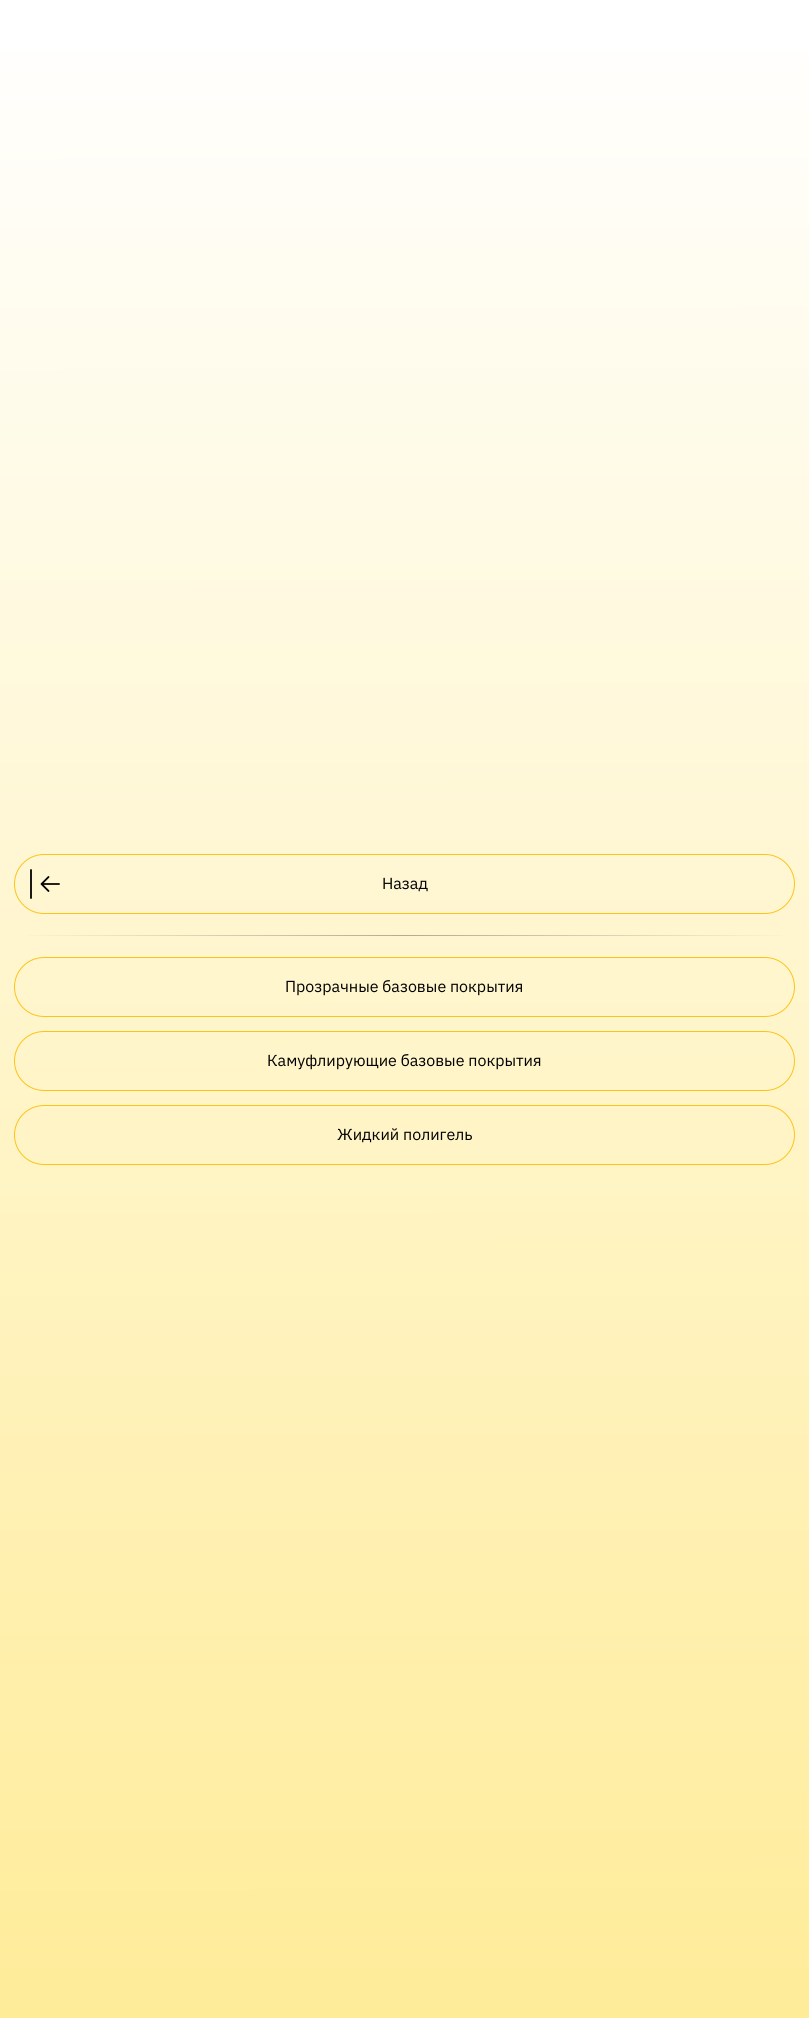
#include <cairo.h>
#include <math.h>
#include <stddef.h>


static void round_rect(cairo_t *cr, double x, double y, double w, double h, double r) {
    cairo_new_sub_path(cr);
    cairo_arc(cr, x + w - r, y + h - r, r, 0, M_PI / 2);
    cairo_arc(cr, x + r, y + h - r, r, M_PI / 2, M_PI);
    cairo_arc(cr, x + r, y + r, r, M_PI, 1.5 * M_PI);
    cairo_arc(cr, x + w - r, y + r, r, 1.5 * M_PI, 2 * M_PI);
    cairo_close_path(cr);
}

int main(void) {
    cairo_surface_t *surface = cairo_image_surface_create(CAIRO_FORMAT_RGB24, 809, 2018);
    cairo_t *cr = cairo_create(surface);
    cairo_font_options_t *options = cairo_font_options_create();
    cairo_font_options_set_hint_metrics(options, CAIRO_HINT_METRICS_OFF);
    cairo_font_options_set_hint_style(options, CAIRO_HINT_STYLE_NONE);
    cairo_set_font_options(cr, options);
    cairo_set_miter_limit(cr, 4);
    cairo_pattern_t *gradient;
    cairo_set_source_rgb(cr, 1, 1, 1);
    cairo_paint(cr);
    gradient = cairo_pattern_create_linear(404, 0, 405, 2018);
    cairo_pattern_add_color_stop_rgba(gradient, 0, 1, 1, 1, 1);
    cairo_pattern_add_color_stop_rgba(gradient, 1, 1, 0.925, 0.6, 1);
    cairo_set_source(cr, gradient);
    cairo_pattern_destroy(gradient);
    cairo_rectangle(cr, 0, 49, 809, 1969);
    cairo_fill(cr);
    round_rect(cr, 14.5, 854.5, 780, 59, 29.5);
    cairo_set_source_rgb(cr, 0.988, 0.769, 0.098);
    cairo_set_line_width(cr, 1);
    cairo_stroke(cr);
    cairo_new_path(cr);
    cairo_move_to(cr, 41.5, 884);
    cairo_line_to(cr, 59, 884);
    cairo_move_to(cr, 41.5, 884);
    cairo_line_to(cr, 48.5, 891);
    cairo_move_to(cr, 41.5, 884);
    cairo_line_to(cr, 48.5, 877);
    cairo_move_to(cr, 31, 870);
    cairo_line_to(cr, 31, 898);
    cairo_set_source_rgb(cr, 0, 0, 0);
    cairo_set_line_width(cr, 1.8);
    cairo_set_line_cap(cr, CAIRO_LINE_CAP_ROUND);
    cairo_set_line_join(cr, CAIRO_LINE_JOIN_ROUND);
    cairo_stroke(cr);
    cairo_select_font_face(cr, "IBM Plex Sans", CAIRO_FONT_SLANT_NORMAL, CAIRO_FONT_WEIGHT_NORMAL);
    cairo_set_font_size(cr, 16);
    cairo_move_to(cr, 382, 889);
    cairo_show_text(cr, "Назад");
    gradient = cairo_pattern_create_linear(405, 936, 14, 936);
    cairo_pattern_add_color_stop_rgba(gradient, 0, 0.702, 0.675, 0.573, 1);
    cairo_pattern_add_color_stop_rgba(gradient, 1, 1, 0.965, 0.816, 1);
    cairo_set_source(cr, gradient);
    cairo_pattern_destroy(gradient);
    cairo_rectangle(cr, 27, 935, 378, 1);
    cairo_fill(cr);
    gradient = cairo_pattern_create_linear(405, 936, 795, 936);
    cairo_pattern_add_color_stop_rgba(gradient, 0, 0.702, 0.675, 0.573, 1);
    cairo_pattern_add_color_stop_rgba(gradient, 1, 1, 0.965, 0.816, 1);
    cairo_set_source(cr, gradient);
    cairo_pattern_destroy(gradient);
    cairo_rectangle(cr, 405, 935, 377, 1);
    cairo_fill(cr);
    round_rect(cr, 14.5, 957.5, 780, 59, 29.5);
    cairo_set_source_rgb(cr, 0.988, 0.769, 0.098);
    cairo_set_line_width(cr, 1);
    cairo_set_line_cap(cr, CAIRO_LINE_CAP_BUTT);
    cairo_set_line_join(cr, CAIRO_LINE_JOIN_MITER);
    cairo_stroke(cr);
    cairo_set_source_rgb(cr, 0, 0, 0);
    cairo_move_to(cr, 285, 992);
    cairo_show_text(cr, "Прозрачные базовые покрытия");
    round_rect(cr, 14.5, 1031.5, 780, 59, 29.5);
    cairo_set_source_rgb(cr, 0.988, 0.769, 0.098);
    cairo_stroke(cr);
    cairo_set_source_rgb(cr, 0, 0, 0);
    cairo_move_to(cr, 267, 1066);
    cairo_show_text(cr, "Камуфлирующие базовые покрытия");
    round_rect(cr, 14.5, 1105.5, 780, 59, 29.5);
    cairo_set_source_rgb(cr, 0.988, 0.769, 0.098);
    cairo_stroke(cr);
    cairo_set_source_rgb(cr, 0, 0, 0);
    cairo_move_to(cr, 337, 1140);
    cairo_show_text(cr, "Жидкий полигель");
    cairo_surface_write_to_png(surface, "page.png");
    cairo_font_options_destroy(options);
    cairo_destroy(cr);
    cairo_surface_destroy(surface);
    return 0;
}
